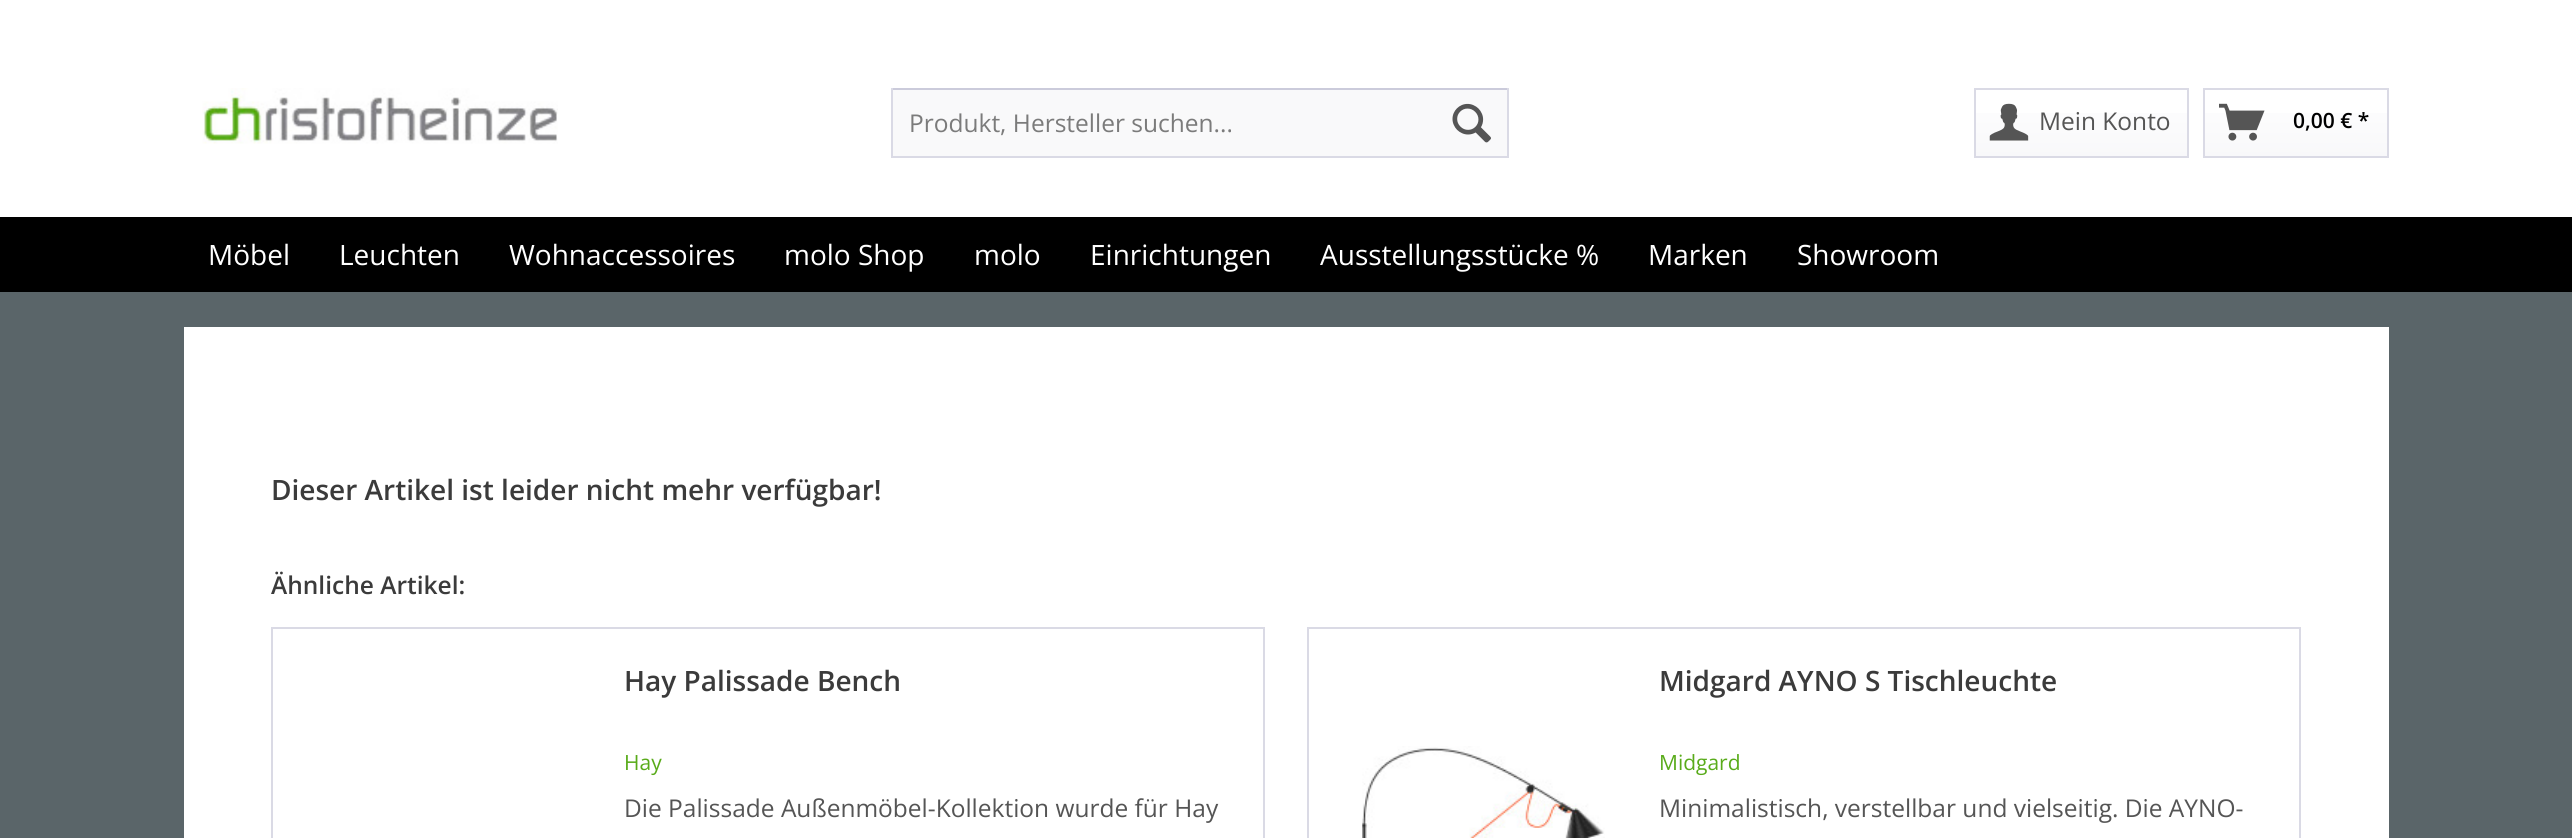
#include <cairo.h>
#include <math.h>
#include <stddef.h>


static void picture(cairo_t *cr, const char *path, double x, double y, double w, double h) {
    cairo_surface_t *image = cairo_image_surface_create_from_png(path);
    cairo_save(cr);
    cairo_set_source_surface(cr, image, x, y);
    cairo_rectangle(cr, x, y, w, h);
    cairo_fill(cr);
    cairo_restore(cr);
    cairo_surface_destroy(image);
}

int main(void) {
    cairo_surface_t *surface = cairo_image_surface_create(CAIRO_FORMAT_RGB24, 2572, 838);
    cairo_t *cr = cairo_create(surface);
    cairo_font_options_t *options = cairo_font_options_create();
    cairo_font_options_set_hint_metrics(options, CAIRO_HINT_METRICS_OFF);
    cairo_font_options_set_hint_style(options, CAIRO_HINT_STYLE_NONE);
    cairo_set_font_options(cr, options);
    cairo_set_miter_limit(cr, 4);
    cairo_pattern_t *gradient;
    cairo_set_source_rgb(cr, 0.353, 0.396, 0.412);
    cairo_paint(cr);
    cairo_set_source_rgb(cr, 1, 1, 1);
    cairo_rectangle(cr, 0, 0, 2572, 217);
    cairo_fill(cr);
    picture(cr, "img1.png", 202, 88, 356, 56);
    cairo_set_source_rgb(cr, 0.973, 0.973, 0.98);
    cairo_rectangle(cr, 893, 90, 614, 66);
    cairo_fill(cr);
    cairo_set_source_rgb(cr, 0.796, 0.796, 0.859);
    cairo_rectangle(cr, 891, 88, 618, 2);
    cairo_fill(cr);
    cairo_set_source_rgb(cr, 0.855, 0.855, 0.898);
    cairo_rectangle(cr, 1507, 88, 2, 70);
    cairo_fill(cr);
    cairo_rectangle(cr, 891, 156, 618, 2);
    cairo_fill(cr);
    cairo_rectangle(cr, 891, 88, 2, 70);
    cairo_fill(cr);
    cairo_select_font_face(cr, "Open Sans", CAIRO_FONT_SLANT_NORMAL, CAIRO_FONT_WEIGHT_NORMAL);
    cairo_set_font_size(cr, 24.5);
    cairo_set_source_rgb(cr, 0.482, 0.482, 0.482);
    cairo_move_to(cr, 909, 132);
    cairo_show_text(cr, "Produkt, Hersteller suchen...");
    picture(cr, "img2.png", 1452, 103, 39, 40);
    gradient = cairo_pattern_create_linear(2082, 89, 2082, 156);
    cairo_pattern_add_color_stop_rgba(gradient, 0, 1, 1, 1, 1);
    cairo_pattern_add_color_stop_rgba(gradient, 1, 0.973, 0.973, 0.98, 1);
    cairo_set_source(cr, gradient);
    cairo_pattern_destroy(gradient);
    cairo_rectangle(cr, 1976, 113, 211, 43);
    cairo_fill(cr);
    cairo_rectangle(cr, 1975, 89, 213, 68);
    cairo_set_source_rgb(cr, 0.855, 0.855, 0.898);
    cairo_stroke(cr);
    picture(cr, "img3.png", 1989, 103, 40, 38);
    cairo_set_source_rgb(cr, 0.333, 0.333, 0.333);
    cairo_move_to(cr, 2039, 130);
    cairo_show_text(cr, "Mein Konto");
    gradient = cairo_pattern_create_linear(2296, 89, 2296, 156);
    cairo_pattern_add_color_stop_rgba(gradient, 0, 1, 1, 1, 1);
    cairo_pattern_add_color_stop_rgba(gradient, 1, 0.973, 0.973, 0.98, 1);
    cairo_set_source(cr, gradient);
    cairo_pattern_destroy(gradient);
    cairo_rectangle(cr, 2205, 113, 182, 43);
    cairo_fill(cr);
    cairo_rectangle(cr, 2204, 89, 184, 68);
    cairo_set_source_rgb(cr, 0.855, 0.855, 0.898);
    cairo_stroke(cr);
    picture(cr, "img4.png", 2219, 103, 46, 38);
    cairo_select_font_face(cr, "Open Sans SemiBold", CAIRO_FONT_SLANT_NORMAL, CAIRO_FONT_WEIGHT_NORMAL);
    cairo_set_font_size(cr, 21);
    cairo_set_source_rgb(cr, 0, 0, 0);
    cairo_move_to(cr, 2293, 128);
    cairo_show_text(cr, "0,00 € *");
    cairo_rectangle(cr, 0, 217, 2572, 75);
    cairo_fill(cr);
    cairo_select_font_face(cr, "Open Sans", CAIRO_FONT_SLANT_NORMAL, CAIRO_FONT_WEIGHT_NORMAL);
    cairo_set_font_size(cr, 28);
    cairo_set_source_rgb(cr, 1, 1, 1);
    cairo_move_to(cr, 208, 265);
    cairo_show_text(cr, "Möbel");
    cairo_move_to(cr, 339, 265);
    cairo_show_text(cr, "Leuchten");
    cairo_move_to(cr, 509, 265);
    cairo_show_text(cr, "Wohnaccessoires");
    cairo_move_to(cr, 784, 265);
    cairo_show_text(cr, "molo Shop");
    cairo_move_to(cr, 974, 265);
    cairo_show_text(cr, "molo");
    cairo_move_to(cr, 1090, 265);
    cairo_show_text(cr, "Einrichtungen");
    cairo_move_to(cr, 1320, 265);
    cairo_show_text(cr, "Ausstellungsstücke %");
    cairo_move_to(cr, 1648, 265);
    cairo_show_text(cr, "Marken");
    cairo_move_to(cr, 1797, 265);
    cairo_show_text(cr, "Showroom");
    cairo_rectangle(cr, 184, 327, 2205, 511);
    cairo_fill(cr);
    cairo_select_font_face(cr, "Open Sans SemiBold", CAIRO_FONT_SLANT_NORMAL, CAIRO_FONT_WEIGHT_NORMAL);
    cairo_set_source_rgb(cr, 0.231, 0.231, 0.231);
    cairo_move_to(cr, 271, 500);
    cairo_show_text(cr, "Dieser Artikel ist leider nicht mehr verfügbar!");
    cairo_set_font_size(cr, 24.5);
    cairo_move_to(cr, 271, 594);
    cairo_show_text(cr, "Ähnliche Artikel:");
    cairo_rectangle(cr, 272, 628, 992, 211);
    cairo_set_source_rgb(cr, 0.855, 0.855, 0.898);
    cairo_stroke(cr);
    cairo_set_font_size(cr, 28);
    cairo_set_source_rgb(cr, 0.231, 0.231, 0.231);
    cairo_move_to(cr, 624, 691);
    cairo_show_text(cr, "Hay Palissade Bench");
    cairo_select_font_face(cr, "Open Sans", CAIRO_FONT_SLANT_NORMAL, CAIRO_FONT_WEIGHT_NORMAL);
    cairo_set_font_size(cr, 21);
    cairo_set_source_rgb(cr, 0.349, 0.671, 0.102);
    cairo_move_to(cr, 624, 770);
    cairo_show_text(cr, "Hay");
    cairo_set_font_size(cr, 24.5);
    cairo_set_source_rgb(cr, 0.333, 0.333, 0.333);
    cairo_move_to(cr, 624, 817);
    cairo_show_text(cr, "Die Palissade Außenmöbel-Kollektion wurde für Hay");
    cairo_rectangle(cr, 1308, 628, 992, 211);
    cairo_set_source_rgb(cr, 0.855, 0.855, 0.898);
    cairo_stroke(cr);
    cairo_select_font_face(cr, "Open Sans SemiBold", CAIRO_FONT_SLANT_NORMAL, CAIRO_FONT_WEIGHT_NORMAL);
    cairo_set_font_size(cr, 28);
    cairo_set_source_rgb(cr, 0.231, 0.231, 0.231);
    cairo_move_to(cr, 1659, 691);
    cairo_show_text(cr, "Midgard AYNO S Tischleuchte");
    picture(cr, "img5.png", 1362, 746, 243, 92);
    cairo_select_font_face(cr, "Open Sans", CAIRO_FONT_SLANT_NORMAL, CAIRO_FONT_WEIGHT_NORMAL);
    cairo_set_font_size(cr, 21);
    cairo_set_source_rgb(cr, 0.349, 0.671, 0.102);
    cairo_move_to(cr, 1659, 770);
    cairo_show_text(cr, "Midgard");
    cairo_set_font_size(cr, 24.5);
    cairo_set_source_rgb(cr, 0.333, 0.333, 0.333);
    cairo_move_to(cr, 1659, 817);
    cairo_show_text(cr, "Minimalistisch, verstellbar und vielseitig. Die AYNO-");
    cairo_surface_write_to_png(surface, "page.png");
    cairo_font_options_destroy(options);
    cairo_destroy(cr);
    cairo_surface_destroy(surface);
    return 0;
}
